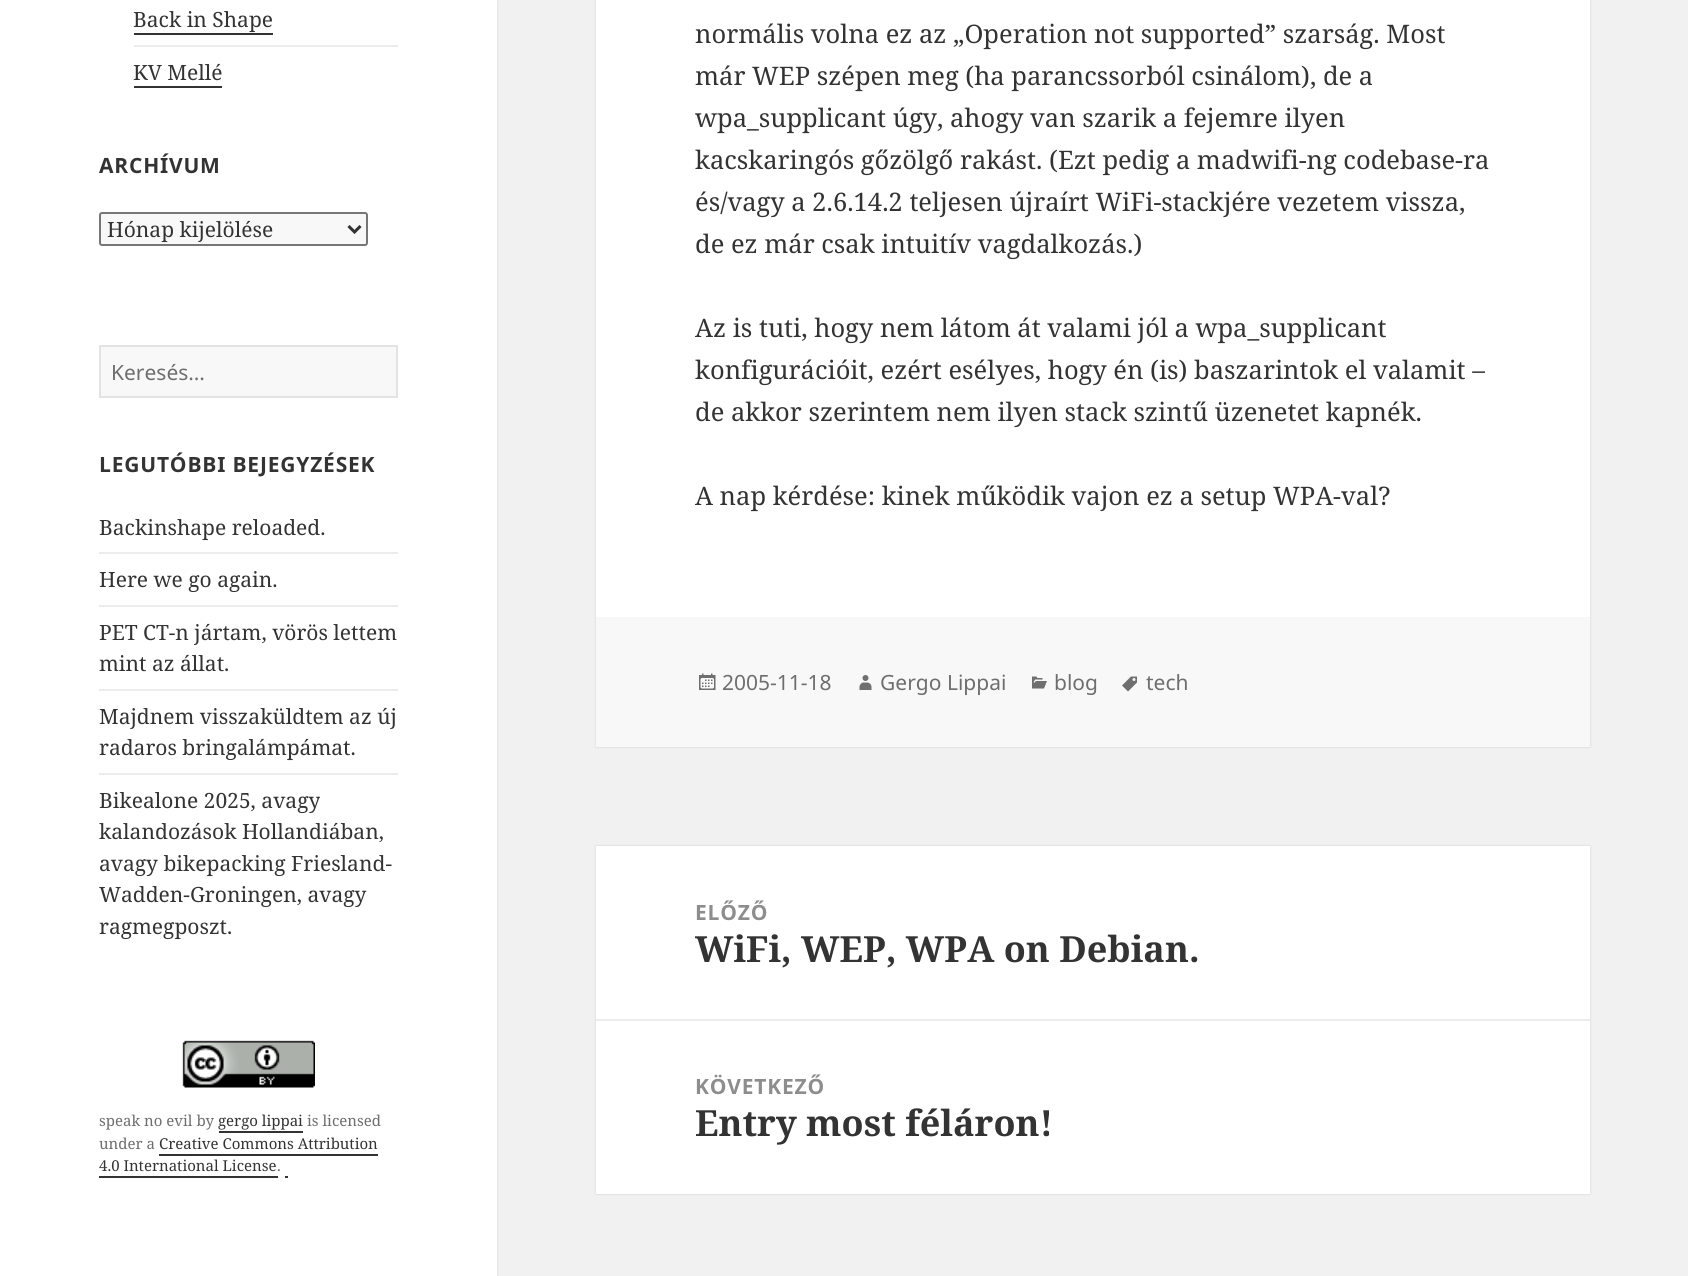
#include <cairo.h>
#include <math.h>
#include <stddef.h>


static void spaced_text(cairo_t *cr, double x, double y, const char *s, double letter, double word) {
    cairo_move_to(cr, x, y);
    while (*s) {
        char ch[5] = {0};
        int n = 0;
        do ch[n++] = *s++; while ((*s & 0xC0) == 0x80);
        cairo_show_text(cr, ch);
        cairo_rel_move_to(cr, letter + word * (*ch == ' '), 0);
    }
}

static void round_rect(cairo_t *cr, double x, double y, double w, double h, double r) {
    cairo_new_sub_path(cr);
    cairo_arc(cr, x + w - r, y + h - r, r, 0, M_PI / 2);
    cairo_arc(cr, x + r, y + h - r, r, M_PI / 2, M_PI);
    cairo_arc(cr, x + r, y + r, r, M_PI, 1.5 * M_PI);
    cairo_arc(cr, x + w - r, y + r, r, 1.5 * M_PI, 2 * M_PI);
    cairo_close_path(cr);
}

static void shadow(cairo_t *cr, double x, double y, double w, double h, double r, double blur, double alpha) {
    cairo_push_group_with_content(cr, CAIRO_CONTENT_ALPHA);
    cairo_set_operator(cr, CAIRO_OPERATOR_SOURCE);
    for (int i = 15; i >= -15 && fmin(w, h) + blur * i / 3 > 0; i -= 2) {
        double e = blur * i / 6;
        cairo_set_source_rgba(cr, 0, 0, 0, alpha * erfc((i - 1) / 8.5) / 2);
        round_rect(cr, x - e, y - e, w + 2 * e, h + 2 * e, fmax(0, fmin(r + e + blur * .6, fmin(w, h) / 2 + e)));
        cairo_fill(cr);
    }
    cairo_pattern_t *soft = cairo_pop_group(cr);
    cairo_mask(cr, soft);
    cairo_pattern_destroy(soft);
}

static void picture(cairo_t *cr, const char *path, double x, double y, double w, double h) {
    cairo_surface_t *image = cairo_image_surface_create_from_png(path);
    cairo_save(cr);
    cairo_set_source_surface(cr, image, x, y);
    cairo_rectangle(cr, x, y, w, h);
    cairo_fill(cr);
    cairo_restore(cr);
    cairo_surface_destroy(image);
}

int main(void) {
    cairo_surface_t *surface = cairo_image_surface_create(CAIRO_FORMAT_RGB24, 1688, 1276);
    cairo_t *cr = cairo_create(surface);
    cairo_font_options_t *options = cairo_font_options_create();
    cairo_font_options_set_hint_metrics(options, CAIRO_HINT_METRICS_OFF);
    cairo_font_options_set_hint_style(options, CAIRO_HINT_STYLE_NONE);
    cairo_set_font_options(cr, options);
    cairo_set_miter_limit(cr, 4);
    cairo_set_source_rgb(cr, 0.945, 0.945, 0.945);
    cairo_paint(cr);
    cairo_set_source_rgb(cr, 0, 0, 0);
    shadow(cr, 0, 0, 497, 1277, 0, 1, 0.15);
    cairo_set_source_rgb(cr, 1, 1, 1);
    cairo_rectangle(cr, 0, 0, 497, 1276);
    cairo_fill(cr);
    cairo_select_font_face(cr, "Noto Serif", CAIRO_FONT_SLANT_NORMAL, CAIRO_FONT_WEIGHT_NORMAL);
    cairo_set_font_size(cr, 21);
    cairo_set_source_rgb(cr, 0.2, 0.2, 0.2);
    cairo_move_to(cr, 133, 27);
    cairo_show_text(cr, "Back in Shape");
    cairo_rectangle(cr, 134, 33, 139, 2);
    cairo_fill(cr);
    cairo_set_source_rgb(cr, 0.922, 0.922, 0.922);
    cairo_rectangle(cr, 134, 45, 264, 2);
    cairo_fill(cr);
    cairo_set_source_rgb(cr, 0.2, 0.2, 0.2);
    cairo_move_to(cr, 133, 80);
    cairo_show_text(cr, "KV Mellé");
    cairo_rectangle(cr, 134, 86, 88, 2);
    cairo_fill(cr);
    cairo_select_font_face(cr, "Noto Sans", CAIRO_FONT_SLANT_NORMAL, CAIRO_FONT_WEIGHT_BOLD);
    spaced_text(cr, 99, 173, "ARCHÍVUM", 0.8, 0);
    cairo_set_source_rgb(cr, 0.969, 0.969, 0.969);
    round_rect(cr, 100, 213, 267, 32, 2);
    cairo_fill_preserve(cr);
    cairo_set_source_rgb(cr, 0.463, 0.463, 0.463);
    cairo_stroke(cr);
    cairo_new_path(cr);
    cairo_move_to(cr, 348.5, 226);
    cairo_line_to(cr, 354.5, 232);
    cairo_line_to(cr, 360.5, 226);
    cairo_set_source_rgb(cr, 0.2, 0.2, 0.2);
    cairo_set_line_width(cr, 3);
    cairo_stroke(cr);
    cairo_select_font_face(cr, "Noto Serif", CAIRO_FONT_SLANT_NORMAL, CAIRO_FONT_WEIGHT_NORMAL);
    cairo_move_to(cr, 107, 237);
    cairo_show_text(cr, "Hónap kijelölése");
    cairo_set_source_rgb(cr, 0.969, 0.969, 0.969);
    cairo_rectangle(cr, 100, 346, 297, 51);
    cairo_fill_preserve(cr);
    cairo_set_source_rgb(cr, 0.89, 0.89, 0.89);
    cairo_set_line_width(cr, 2);
    cairo_stroke(cr);
    cairo_select_font_face(cr, "Noto Sans", CAIRO_FONT_SLANT_NORMAL, CAIRO_FONT_WEIGHT_NORMAL);
    cairo_set_source_rgb(cr, 0.431, 0.431, 0.431);
    cairo_move_to(cr, 111, 380);
    cairo_show_text(cr, "Keresés…");
    cairo_select_font_face(cr, "Noto Sans", CAIRO_FONT_SLANT_NORMAL, CAIRO_FONT_WEIGHT_BOLD);
    cairo_set_source_rgb(cr, 0.2, 0.2, 0.2);
    spaced_text(cr, 99, 472, "LEGUTÓBBI BEJEGYZÉSEK", 0.8, 0);
    cairo_select_font_face(cr, "Noto Serif", CAIRO_FONT_SLANT_NORMAL, CAIRO_FONT_WEIGHT_NORMAL);
    cairo_move_to(cr, 99, 535);
    cairo_show_text(cr, "Backinshape reloaded.");
    cairo_set_source_rgb(cr, 0.922, 0.922, 0.922);
    cairo_rectangle(cr, 99, 552, 299, 2);
    cairo_fill(cr);
    cairo_set_source_rgb(cr, 0.2, 0.2, 0.2);
    cairo_move_to(cr, 99, 587);
    cairo_show_text(cr, "Here we go again.");
    cairo_set_source_rgb(cr, 0.922, 0.922, 0.922);
    cairo_rectangle(cr, 99, 605, 299, 2);
    cairo_fill(cr);
    cairo_set_source_rgb(cr, 0.2, 0.2, 0.2);
    cairo_move_to(cr, 99, 640);
    cairo_show_text(cr, "PET CT-n jártam, vörös lettem");
    cairo_move_to(cr, 99, 671);
    cairo_show_text(cr, "mint az állat.");
    cairo_set_source_rgb(cr, 0.922, 0.922, 0.922);
    cairo_rectangle(cr, 99, 689, 299, 2);
    cairo_fill(cr);
    cairo_set_source_rgb(cr, 0.2, 0.2, 0.2);
    cairo_move_to(cr, 99, 724);
    cairo_show_text(cr, "Majdnem visszaküldtem az új");
    cairo_move_to(cr, 99, 755);
    cairo_show_text(cr, "radaros bringalámpámat.");
    cairo_set_source_rgb(cr, 0.922, 0.922, 0.922);
    cairo_rectangle(cr, 99, 773, 299, 2);
    cairo_fill(cr);
    cairo_set_source_rgb(cr, 0.2, 0.2, 0.2);
    cairo_move_to(cr, 99, 808);
    cairo_show_text(cr, "Bikealone 2025, avagy");
    cairo_move_to(cr, 99, 839);
    cairo_show_text(cr, "kalandozások Hollandiában,");
    cairo_move_to(cr, 99, 871);
    cairo_show_text(cr, "avagy bikepacking Friesland-");
    cairo_move_to(cr, 99, 902);
    cairo_show_text(cr, "Wadden-Groningen, avagy");
    cairo_move_to(cr, 99, 934);
    cairo_show_text(cr, "ragmegposzt.");
    picture(cr, "img1.png", 182, 1040, 133, 48);
    cairo_set_font_size(cr, 15);
    cairo_set_source_rgb(cr, 0.431, 0.431, 0.431);
    cairo_move_to(cr, 99, 1126);
    cairo_show_text(cr, "speak no evil by");
    cairo_set_source_rgb(cr, 0.2, 0.2, 0.2);
    cairo_move_to(cr, 218, 1126);
    cairo_show_text(cr, "gergo lippai");
    cairo_rectangle(cr, 219, 1131, 84, 2);
    cairo_fill(cr);
    cairo_set_source_rgb(cr, 0.431, 0.431, 0.431);
    cairo_move_to(cr, 307, 1126);
    cairo_show_text(cr, "is licensed");
    cairo_move_to(cr, 99, 1149);
    cairo_show_text(cr, "under a");
    cairo_set_source_rgb(cr, 0.2, 0.2, 0.2);
    cairo_move_to(cr, 159, 1149);
    cairo_show_text(cr, "Creative Commons Attribution");
    cairo_move_to(cr, 99, 1171);
    cairo_show_text(cr, "4.0 International License");
    cairo_rectangle(cr, 159, 1154, 219, 2);
    cairo_fill(cr);
    cairo_rectangle(cr, 99, 1176, 179, 2);
    cairo_fill(cr);
    cairo_set_source_rgb(cr, 0.431, 0.431, 0.431);
    cairo_move_to(cr, 277, 1171);
    cairo_show_text(cr, ".");
    cairo_set_source_rgb(cr, 0.2, 0.2, 0.2);
    cairo_rectangle(cr, 285, 1176, 3, 2);
    cairo_fill(cr);
    cairo_set_source_rgb(cr, 0, 0, 0);
    shadow(cr, 596, -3, 994, 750, 0, 1, 0.15);
    cairo_set_source_rgb(cr, 1, 1, 1);
    cairo_rectangle(cr, 596, 0, 994, 617);
    cairo_fill(cr);
    cairo_set_font_size(cr, 25.5);
    cairo_set_source_rgb(cr, 0.2, 0.2, 0.2);
    cairo_move_to(cr, 695, 43);
    cairo_show_text(cr, "normális volna ez az „Operation not supported” szarság. Most");
    cairo_move_to(cr, 695, 85);
    cairo_show_text(cr, "már WEP szépen meg (ha parancssorból csinálom), de a");
    cairo_move_to(cr, 695, 127);
    cairo_show_text(cr, "wpa_supplicant úgy, ahogy van szarik a fejemre ilyen");
    cairo_move_to(cr, 695, 169);
    cairo_show_text(cr, "kacskaringós gőzölgő rakást. (Ezt pedig a madwifi-ng codebase-ra");
    cairo_move_to(cr, 695, 211);
    cairo_show_text(cr, "és/vagy a 2.6.14.2 teljesen újraírt WiFi-stackjére vezetem vissza,");
    cairo_move_to(cr, 695, 253);
    cairo_show_text(cr, "de ez már csak intuitív vagdalkozás.)");
    cairo_move_to(cr, 695, 337);
    cairo_show_text(cr, "Az is tuti, hogy nem látom át valami jól a wpa_supplicant");
    cairo_move_to(cr, 695, 379);
    cairo_show_text(cr, "konfigurációit, ezért esélyes, hogy én (is) baszarintok el valamit –");
    cairo_move_to(cr, 695, 421);
    cairo_show_text(cr, "de akkor szerintem nem ilyen stack szintű üzenetet kapnék.");
    cairo_move_to(cr, 695, 505);
    cairo_show_text(cr, "A nap kérdése: kinek működik vajon ez a setup WPA-val?");
    cairo_set_source_rgb(cr, 0.969, 0.969, 0.969);
    cairo_rectangle(cr, 596, 617, 994, 130);
    cairo_fill(cr);
    picture(cr, "img2.png", 699, 673, 17, 17);
    cairo_select_font_face(cr, "Noto Sans", CAIRO_FONT_SLANT_NORMAL, CAIRO_FONT_WEIGHT_NORMAL);
    cairo_set_font_size(cr, 21);
    cairo_set_source_rgb(cr, 0.431, 0.431, 0.431);
    cairo_move_to(cr, 722, 690);
    cairo_show_text(cr, "2005-11-18");
    picture(cr, "img3.png", 859, 675, 13, 15);
    cairo_move_to(cr, 880, 690);
    cairo_show_text(cr, "Gergo Lippai");
    picture(cr, "img4.png", 1032, 676, 15, 13);
    cairo_move_to(cr, 1054, 690);
    cairo_show_text(cr, "blog");
    picture(cr, "img5.png", 1122, 676, 15, 16);
    cairo_move_to(cr, 1146, 690);
    cairo_show_text(cr, "tech");
    cairo_set_source_rgb(cr, 0, 0, 0);
    shadow(cr, 596, 846, 994, 348, 0, 1, 0.15);
    cairo_set_source_rgb(cr, 1, 1, 1);
    cairo_rectangle(cr, 596, 846, 994, 348);
    cairo_fill(cr);
    cairo_select_font_face(cr, "Noto Sans", CAIRO_FONT_SLANT_NORMAL, CAIRO_FONT_WEIGHT_BOLD);
    cairo_set_source_rgb(cr, 0.553, 0.553, 0.553);
    spaced_text(cr, 695, 920, "ELŐZŐ", 0.8, 0);
    cairo_select_font_face(cr, "Noto Serif", CAIRO_FONT_SLANT_NORMAL, CAIRO_FONT_WEIGHT_BOLD);
    cairo_set_font_size(cr, 36);
    cairo_set_source_rgb(cr, 0.2, 0.2, 0.2);
    cairo_move_to(cr, 695, 962);
    cairo_show_text(cr, "WiFi, WEP, WPA on Debian.");
    cairo_set_source_rgb(cr, 0.922, 0.922, 0.922);
    cairo_rectangle(cr, 596, 1019, 994, 2);
    cairo_fill(cr);
    cairo_select_font_face(cr, "Noto Sans", CAIRO_FONT_SLANT_NORMAL, CAIRO_FONT_WEIGHT_BOLD);
    cairo_set_font_size(cr, 21);
    cairo_set_source_rgb(cr, 0.553, 0.553, 0.553);
    spaced_text(cr, 695, 1094, "KÖVETKEZŐ", 0.8, 0);
    cairo_select_font_face(cr, "Noto Serif", CAIRO_FONT_SLANT_NORMAL, CAIRO_FONT_WEIGHT_BOLD);
    cairo_set_font_size(cr, 36);
    cairo_set_source_rgb(cr, 0.2, 0.2, 0.2);
    cairo_move_to(cr, 695, 1136);
    cairo_show_text(cr, "Entry most féláron!");
    cairo_surface_write_to_png(surface, "page.png");
    cairo_font_options_destroy(options);
    cairo_destroy(cr);
    cairo_surface_destroy(surface);
    return 0;
}
